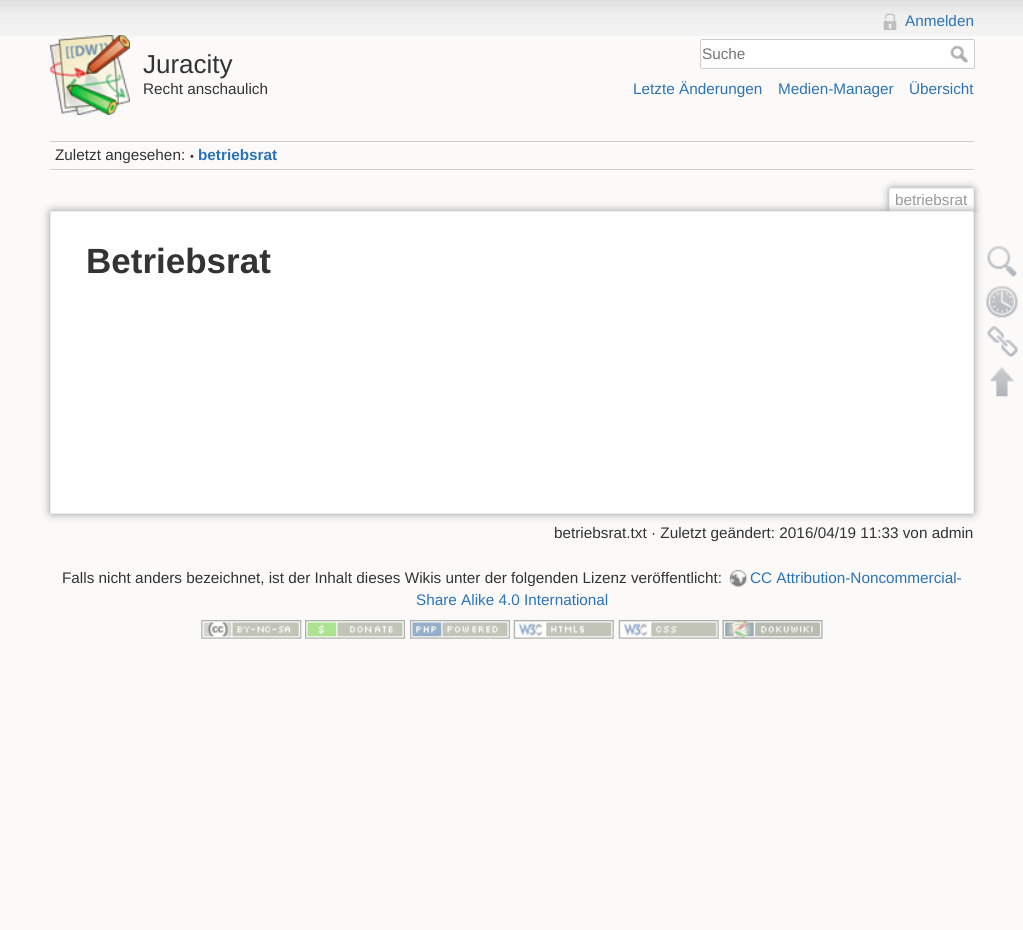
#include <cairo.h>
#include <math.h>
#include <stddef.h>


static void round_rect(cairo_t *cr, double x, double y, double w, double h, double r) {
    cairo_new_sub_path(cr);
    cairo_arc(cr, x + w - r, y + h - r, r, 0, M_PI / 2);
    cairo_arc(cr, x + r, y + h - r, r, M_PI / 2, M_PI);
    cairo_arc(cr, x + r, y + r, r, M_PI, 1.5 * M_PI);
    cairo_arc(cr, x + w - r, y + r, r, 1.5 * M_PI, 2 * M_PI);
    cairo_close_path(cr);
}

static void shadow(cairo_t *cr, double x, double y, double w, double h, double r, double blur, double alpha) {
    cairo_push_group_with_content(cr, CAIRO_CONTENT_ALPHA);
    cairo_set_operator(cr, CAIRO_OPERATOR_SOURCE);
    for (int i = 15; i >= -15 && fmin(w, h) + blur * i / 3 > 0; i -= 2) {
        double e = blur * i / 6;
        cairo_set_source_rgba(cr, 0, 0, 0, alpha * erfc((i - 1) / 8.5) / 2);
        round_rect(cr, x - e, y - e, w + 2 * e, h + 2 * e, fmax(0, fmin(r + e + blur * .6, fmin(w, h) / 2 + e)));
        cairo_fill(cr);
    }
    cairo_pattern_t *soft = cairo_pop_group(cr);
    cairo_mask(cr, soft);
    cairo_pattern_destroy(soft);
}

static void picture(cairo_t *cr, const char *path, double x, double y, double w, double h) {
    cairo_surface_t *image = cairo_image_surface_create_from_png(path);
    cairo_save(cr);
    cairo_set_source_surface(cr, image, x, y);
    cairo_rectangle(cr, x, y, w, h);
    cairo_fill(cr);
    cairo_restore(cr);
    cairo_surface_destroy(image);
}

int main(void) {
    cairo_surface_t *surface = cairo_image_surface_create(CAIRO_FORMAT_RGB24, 1023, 930);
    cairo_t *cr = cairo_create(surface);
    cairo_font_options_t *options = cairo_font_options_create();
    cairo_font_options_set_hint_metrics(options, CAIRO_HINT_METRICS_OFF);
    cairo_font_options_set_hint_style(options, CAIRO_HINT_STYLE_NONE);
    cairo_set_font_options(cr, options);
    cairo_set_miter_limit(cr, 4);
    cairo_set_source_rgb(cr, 0.984, 0.98, 0.976);
    cairo_paint(cr);
    picture(cr, "img1.png", 0, 0, 1023, 36);
    picture(cr, "img2.png", 50, 35, 80, 80);
    cairo_select_font_face(cr, "Liberation Sans", CAIRO_FONT_SLANT_NORMAL, CAIRO_FONT_WEIGHT_NORMAL);
    cairo_set_font_size(cr, 26);
    cairo_set_source_rgb(cr, 0.2, 0.2, 0.2);
    cairo_move_to(cr, 143, 73);
    cairo_show_text(cr, "Juracity");
    cairo_set_font_size(cr, 15.3);
    cairo_move_to(cr, 143, 94);
    cairo_show_text(cr, "Recht anschaulich");
    picture(cr, "img3.png", 883, 13, 14, 17);
    cairo_set_source_rgb(cr, 0.169, 0.451, 0.718);
    cairo_move_to(cr, 905, 26);
    cairo_show_text(cr, "Anmelden");
    cairo_set_source_rgb(cr, 1, 1, 1);
    round_rect(cr, 700.5, 39.5, 274, 29, 2);
    cairo_fill_preserve(cr);
    cairo_set_source_rgb(cr, 0.8, 0.8, 0.8);
    cairo_set_line_width(cr, 1);
    cairo_stroke(cr);
    cairo_set_source_rgb(cr, 0.459, 0.459, 0.459);
    cairo_move_to(cr, 702, 59);
    cairo_show_text(cr, "Suche");
    picture(cr, "img4.png", 950, 45, 18, 18);
    cairo_set_source_rgb(cr, 0.169, 0.451, 0.718);
    cairo_move_to(cr, 633, 94);
    cairo_show_text(cr, "Letzte Änderungen");
    cairo_move_to(cr, 778, 94);
    cairo_show_text(cr, "Medien-Manager");
    cairo_move_to(cr, 909, 94);
    cairo_show_text(cr, "Übersicht");
    cairo_set_source_rgb(cr, 0.8, 0.8, 0.8);
    cairo_rectangle(cr, 50, 141, 924, 1);
    cairo_fill(cr);
    cairo_set_source_rgb(cr, 1, 1, 1);
    cairo_rectangle(cr, 50, 170, 924, 1);
    cairo_fill(cr);
    cairo_rectangle(cr, 50, 143, 924, 1);
    cairo_fill(cr);
    cairo_set_source_rgb(cr, 0.8, 0.8, 0.8);
    cairo_rectangle(cr, 50, 169, 924, 1);
    cairo_fill(cr);
    cairo_set_source_rgb(cr, 0.2, 0.2, 0.2);
    cairo_move_to(cr, 55, 160);
    cairo_show_text(cr, "Zuletzt angesehen:");
    cairo_set_font_size(cr, 11);
    cairo_move_to(cr, 190, 160);
    cairo_show_text(cr, "•");
    cairo_select_font_face(cr, "Liberation Sans", CAIRO_FONT_SLANT_NORMAL, CAIRO_FONT_WEIGHT_BOLD);
    cairo_set_font_size(cr, 15.3);
    cairo_set_source_rgb(cr, 0.169, 0.451, 0.718);
    cairo_move_to(cr, 198, 160);
    cairo_show_text(cr, "betriebsrat");
    cairo_save(cr);
    cairo_rectangle(cr, 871, 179, 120, 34);
    cairo_clip(cr);
    cairo_set_source_rgb(cr, 0.6, 0.6, 0.6);
    shadow(cr, 889, 188, 85, 25, 2.5, 4, 1);
    cairo_restore(cr);
    cairo_set_source_rgb(cr, 1, 1, 1);
    cairo_new_path(cr);
    cairo_move_to(cr, 891, 189);
    cairo_line_to(cr, 972, 189);
    cairo_curve_to(cr, 972.5, 189, 973, 189.5, 973, 190);
    cairo_line_to(cr, 973, 213);
    cairo_line_to(cr, 890, 213);
    cairo_line_to(cr, 890, 190);
    cairo_curve_to(cr, 890, 189.5, 890.5, 189, 891, 189);
    cairo_close_path(cr);
    cairo_fill(cr);
    cairo_set_source_rgb(cr, 0.933, 0.933, 0.933);
    cairo_rectangle(cr, 890, 188, 83, 1);
    cairo_fill(cr);
    cairo_rectangle(cr, 973, 189, 1, 24);
    cairo_fill(cr);
    cairo_rectangle(cr, 889, 189, 1, 24);
    cairo_fill(cr);
    cairo_select_font_face(cr, "Liberation Sans", CAIRO_FONT_SLANT_NORMAL, CAIRO_FONT_WEIGHT_NORMAL);
    cairo_set_source_rgb(cr, 0.6, 0.6, 0.6);
    cairo_move_to(cr, 895, 205);
    cairo_show_text(cr, "betriebsrat");
    cairo_set_source_rgb(cr, 0.6, 0.6, 0.6);
    shadow(cr, 50, 211, 924, 303, 2.5, 4.5, 1);
    cairo_set_source_rgb(cr, 1, 1, 1);
    round_rect(cr, 50.5, 211.5, 923, 302, 2);
    cairo_fill_preserve(cr);
    cairo_set_source_rgb(cr, 0.933, 0.933, 0.933);
    cairo_stroke(cr);
    cairo_select_font_face(cr, "Liberation Sans", CAIRO_FONT_SLANT_NORMAL, CAIRO_FONT_WEIGHT_BOLD);
    cairo_set_font_size(cr, 35);
    cairo_set_source_rgb(cr, 0.2, 0.2, 0.2);
    cairo_move_to(cr, 86, 273);
    cairo_show_text(cr, "Betriebsrat");
    cairo_select_font_face(cr, "Liberation Sans", CAIRO_FONT_SLANT_NORMAL, CAIRO_FONT_WEIGHT_NORMAL);
    cairo_set_font_size(cr, 15.3);
    cairo_move_to(cr, 554, 538);
    cairo_show_text(cr, "betriebsrat.txt · Zuletzt geändert: 2016/04/19 11:33 von admin");
    picture(cr, "img5.png", 987, 246, 31, 31);
    picture(cr, "img6.png", 986, 286, 32, 32);
    picture(cr, "img7.png", 987, 326, 31, 31);
    picture(cr, "img8.png", 990, 367, 24, 30);
    cairo_move_to(cr, 62, 583);
    cairo_show_text(cr, "Falls nicht anders bezeichnet, ist der Inhalt dieses Wikis unter der folgenden Lizenz veröffentlicht:");
    picture(cr, "img9.png", 729, 570, 18, 18);
    cairo_set_source_rgb(cr, 0.169, 0.451, 0.718);
    cairo_move_to(cr, 750, 583);
    cairo_show_text(cr, "CC Attribution-Noncommercial-");
    cairo_move_to(cr, 416, 605);
    cairo_show_text(cr, "Share Alike 4.0 International");
    picture(cr, "img10.png", 201, 620, 101, 19);
    picture(cr, "img11.png", 305, 620, 100, 19);
    picture(cr, "img12.png", 410, 620, 100, 19);
    picture(cr, "img13.png", 513, 620, 101, 19);
    picture(cr, "img14.png", 618, 620, 101, 19);
    picture(cr, "img15.png", 722, 620, 101, 19);
    cairo_surface_write_to_png(surface, "page.png");
    cairo_font_options_destroy(options);
    cairo_destroy(cr);
    cairo_surface_destroy(surface);
    return 0;
}
